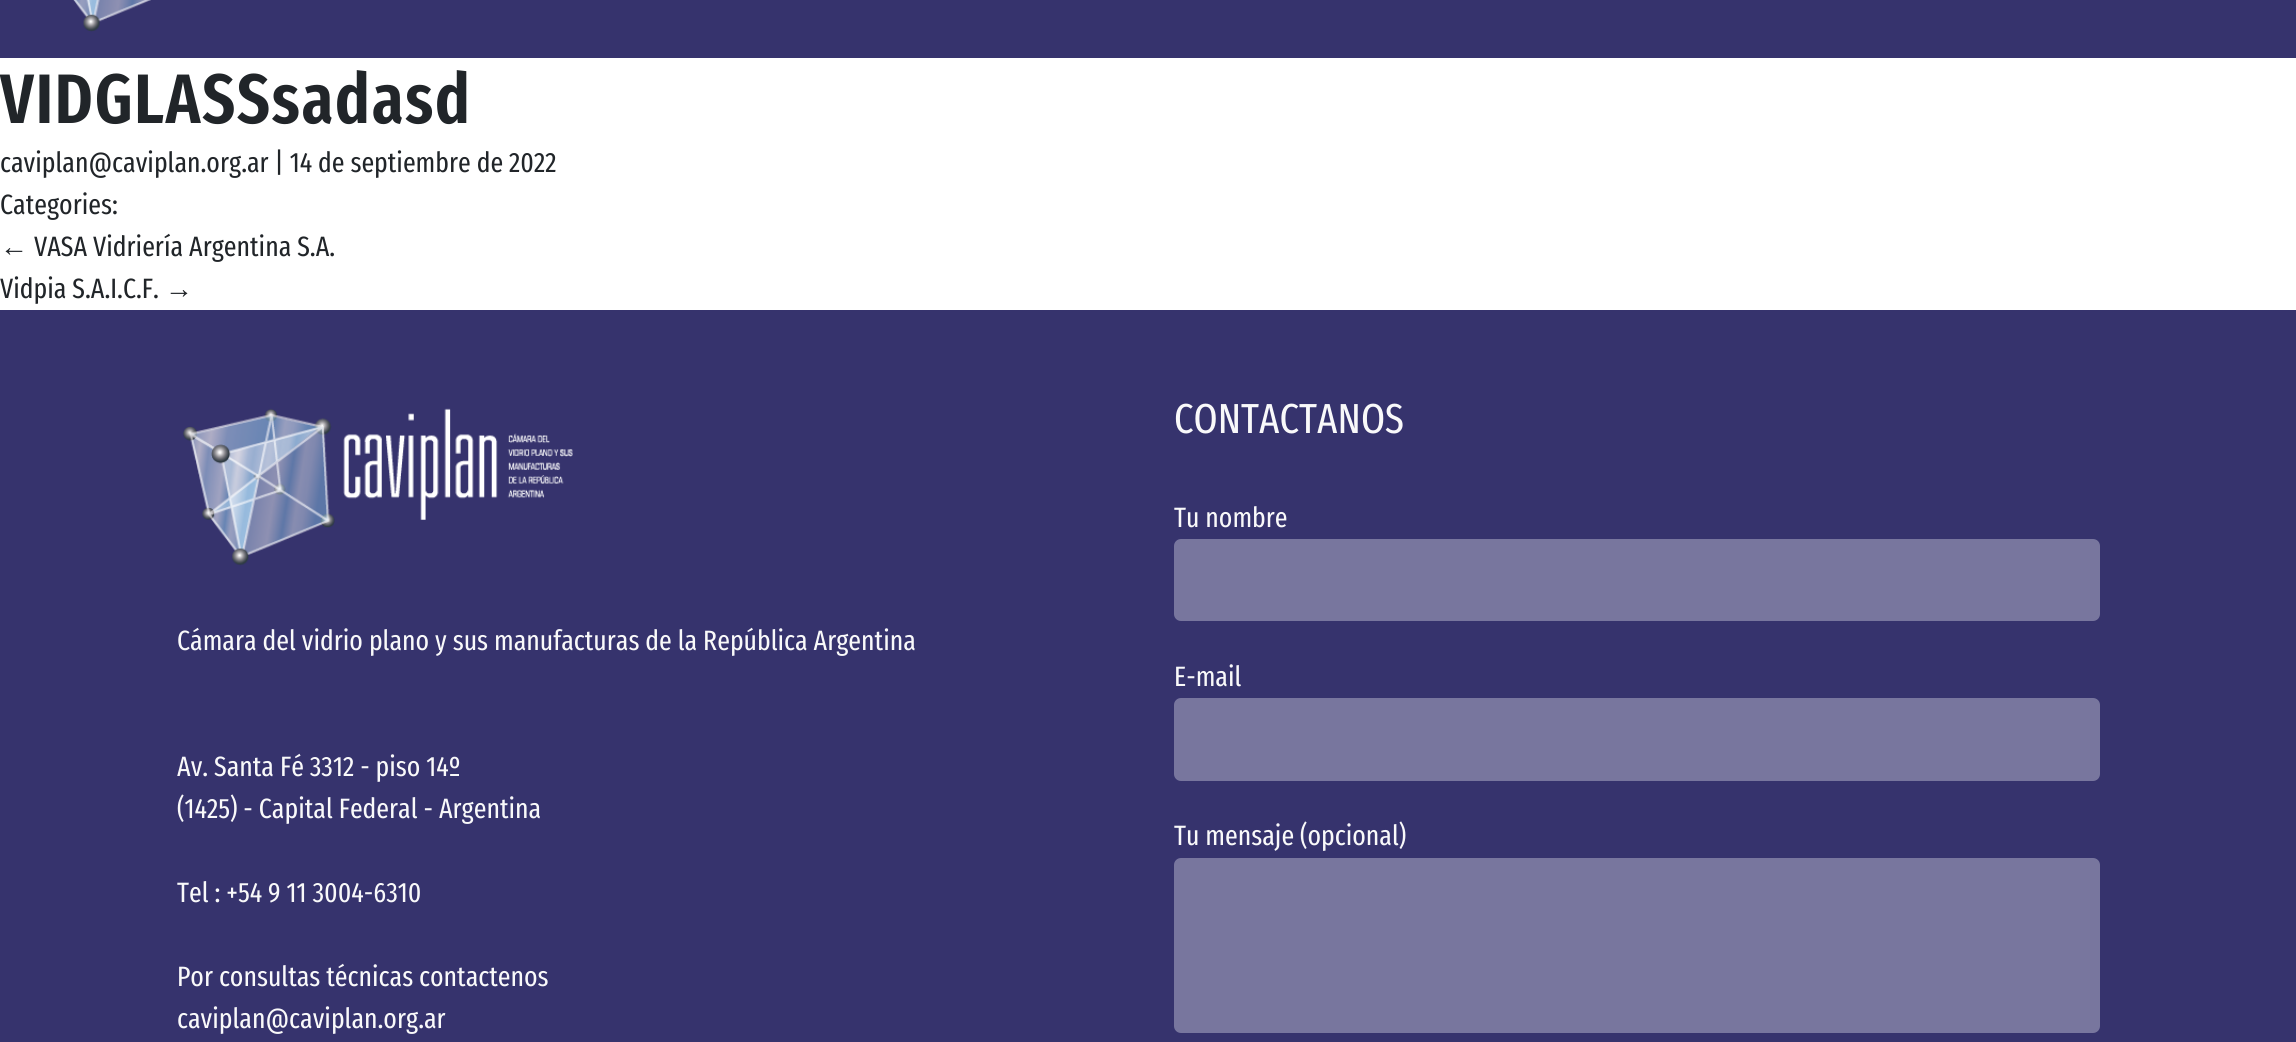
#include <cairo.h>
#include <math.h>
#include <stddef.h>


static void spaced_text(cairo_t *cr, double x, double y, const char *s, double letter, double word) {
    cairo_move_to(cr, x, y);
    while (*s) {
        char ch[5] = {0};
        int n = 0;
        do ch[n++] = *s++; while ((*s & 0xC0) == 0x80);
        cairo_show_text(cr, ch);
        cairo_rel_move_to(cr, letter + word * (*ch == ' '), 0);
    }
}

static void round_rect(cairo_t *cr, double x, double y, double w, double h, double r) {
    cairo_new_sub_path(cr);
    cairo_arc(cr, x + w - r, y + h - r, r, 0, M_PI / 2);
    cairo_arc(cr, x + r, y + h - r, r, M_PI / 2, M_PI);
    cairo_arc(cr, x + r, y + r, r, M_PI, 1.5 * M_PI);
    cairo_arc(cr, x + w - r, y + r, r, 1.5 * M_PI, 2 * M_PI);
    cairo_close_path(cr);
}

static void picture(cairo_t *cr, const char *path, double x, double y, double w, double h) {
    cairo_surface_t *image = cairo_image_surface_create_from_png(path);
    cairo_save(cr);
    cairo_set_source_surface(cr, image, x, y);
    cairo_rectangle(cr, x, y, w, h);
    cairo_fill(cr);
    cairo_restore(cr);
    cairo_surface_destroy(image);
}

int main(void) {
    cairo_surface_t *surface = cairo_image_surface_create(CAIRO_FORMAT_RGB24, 2296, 1042);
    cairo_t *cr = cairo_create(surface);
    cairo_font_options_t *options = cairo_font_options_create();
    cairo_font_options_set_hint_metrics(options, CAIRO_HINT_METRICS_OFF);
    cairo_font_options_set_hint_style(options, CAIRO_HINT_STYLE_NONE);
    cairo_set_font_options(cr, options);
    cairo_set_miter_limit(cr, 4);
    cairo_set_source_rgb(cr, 1, 1, 1);
    cairo_paint(cr);
    cairo_set_source_rgb(cr, 0.212, 0.2, 0.427);
    cairo_rectangle(cr, 0, 0, 2296, 58);
    cairo_fill(cr);
    picture(cr, "img1.png", 73, 0, 78, 32);
    cairo_select_font_face(cr, "Fira Sans Extra Condensed SemiBold", CAIRO_FONT_SLANT_NORMAL, CAIRO_FONT_WEIGHT_NORMAL);
    cairo_set_font_size(cr, 70);
    cairo_set_source_rgb(cr, 0.129, 0.145, 0.161);
    spaced_text(cr, 0, 123, "VIDGLASSsadasd", 1.75, 0);
    cairo_select_font_face(cr, "Fira Sans Extra Condensed", CAIRO_FONT_SLANT_NORMAL, CAIRO_FONT_WEIGHT_NORMAL);
    cairo_set_font_size(cr, 28);
    cairo_move_to(cr, 0, 172);
    cairo_show_text(cr, "caviplan@caviplan.org.ar | 14 de septiembre de 2022");
    cairo_move_to(cr, 0, 214);
    cairo_show_text(cr, "Categories:");
    cairo_select_font_face(cr, "Liberation Sans", CAIRO_FONT_SLANT_NORMAL, CAIRO_FONT_WEIGHT_NORMAL);
    cairo_move_to(cr, 0, 256);
    cairo_show_text(cr, "←");
    cairo_select_font_face(cr, "Fira Sans Extra Condensed", CAIRO_FONT_SLANT_NORMAL, CAIRO_FONT_WEIGHT_NORMAL);
    cairo_move_to(cr, 34, 256);
    cairo_show_text(cr, "VASA Vidriería Argentina S.A.");
    cairo_move_to(cr, 0, 298);
    cairo_show_text(cr, "Vidpia S.A.I.C.F.");
    cairo_select_font_face(cr, "Liberation Sans", CAIRO_FONT_SLANT_NORMAL, CAIRO_FONT_WEIGHT_NORMAL);
    cairo_move_to(cr, 165, 298);
    cairo_show_text(cr, "→");
    cairo_set_source_rgb(cr, 0.212, 0.2, 0.427);
    cairo_rectangle(cr, 0, 310, 2296, 732);
    cairo_fill(cr);
    picture(cr, "img2.png", 183, 408, 390, 158);
    cairo_select_font_face(cr, "Fira Sans Extra Condensed", CAIRO_FONT_SLANT_NORMAL, CAIRO_FONT_WEIGHT_NORMAL);
    cairo_set_source_rgb(cr, 0.973, 0.976, 0.98);
    cairo_move_to(cr, 177, 650);
    cairo_show_text(cr, "Cámara del vidrio plano y sus manufacturas de la República Argentina");
    cairo_move_to(cr, 177, 776);
    cairo_show_text(cr, "Av. Santa Fé 3312 - piso 14º");
    cairo_move_to(cr, 177, 818);
    cairo_show_text(cr, "(1425) - Capital Federal - Argentina");
    cairo_move_to(cr, 177, 902);
    cairo_show_text(cr, "Tel : +54 9 11 3004-6310");
    cairo_move_to(cr, 177, 986);
    cairo_show_text(cr, "Por consultas técnicas contactenos");
    cairo_move_to(cr, 177, 1028);
    cairo_show_text(cr, "caviplan@caviplan.org.ar");
    cairo_set_font_size(cr, 42);
    cairo_move_to(cr, 1174, 433);
    cairo_show_text(cr, "CONTACTANOS");
    cairo_set_font_size(cr, 28);
    cairo_move_to(cr, 1174, 527);
    cairo_show_text(cr, "Tu nombre");
    cairo_set_source_rgb(cr, 0.471, 0.463, 0.62);
    round_rect(cr, 1174, 539, 926, 82, 7);
    cairo_fill(cr);
    cairo_set_source_rgb(cr, 0.973, 0.976, 0.98);
    cairo_move_to(cr, 1174, 686);
    cairo_show_text(cr, "E-mail");
    cairo_set_source_rgb(cr, 0.471, 0.463, 0.62);
    round_rect(cr, 1174, 698, 926, 83, 7);
    cairo_fill(cr);
    cairo_set_source_rgb(cr, 0.973, 0.976, 0.98);
    cairo_move_to(cr, 1174, 845);
    cairo_show_text(cr, "Tu mensaje (opcional)");
    cairo_set_source_rgb(cr, 0.471, 0.463, 0.62);
    round_rect(cr, 1174, 858, 926, 175, 7);
    cairo_fill(cr);
    cairo_surface_write_to_png(surface, "page.png");
    cairo_font_options_destroy(options);
    cairo_destroy(cr);
    cairo_surface_destroy(surface);
    return 0;
}
